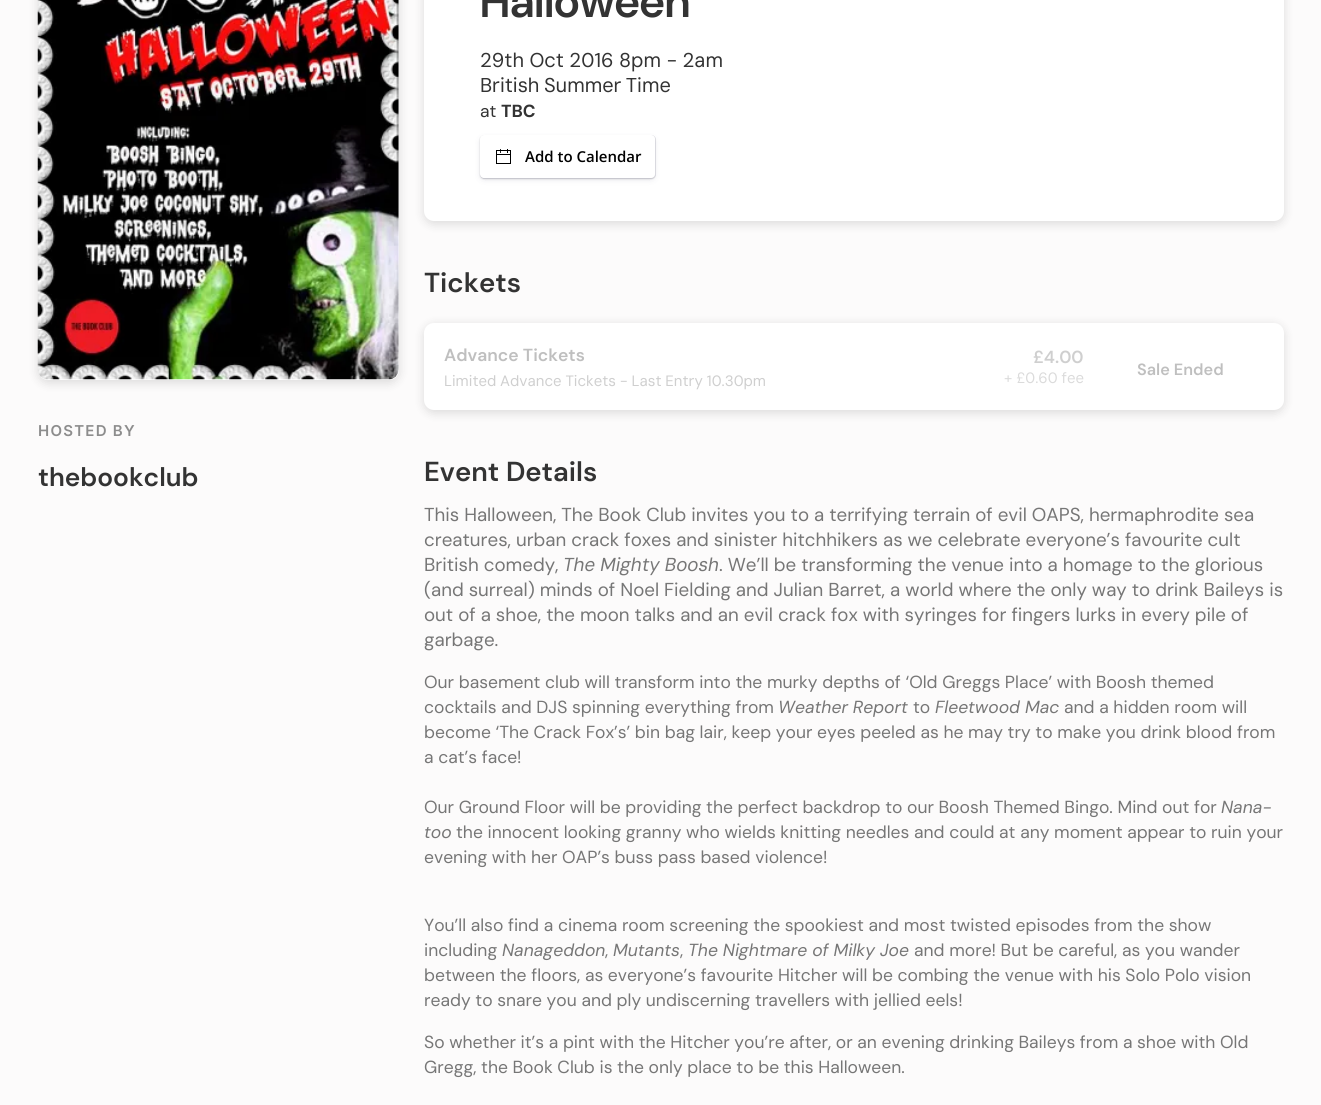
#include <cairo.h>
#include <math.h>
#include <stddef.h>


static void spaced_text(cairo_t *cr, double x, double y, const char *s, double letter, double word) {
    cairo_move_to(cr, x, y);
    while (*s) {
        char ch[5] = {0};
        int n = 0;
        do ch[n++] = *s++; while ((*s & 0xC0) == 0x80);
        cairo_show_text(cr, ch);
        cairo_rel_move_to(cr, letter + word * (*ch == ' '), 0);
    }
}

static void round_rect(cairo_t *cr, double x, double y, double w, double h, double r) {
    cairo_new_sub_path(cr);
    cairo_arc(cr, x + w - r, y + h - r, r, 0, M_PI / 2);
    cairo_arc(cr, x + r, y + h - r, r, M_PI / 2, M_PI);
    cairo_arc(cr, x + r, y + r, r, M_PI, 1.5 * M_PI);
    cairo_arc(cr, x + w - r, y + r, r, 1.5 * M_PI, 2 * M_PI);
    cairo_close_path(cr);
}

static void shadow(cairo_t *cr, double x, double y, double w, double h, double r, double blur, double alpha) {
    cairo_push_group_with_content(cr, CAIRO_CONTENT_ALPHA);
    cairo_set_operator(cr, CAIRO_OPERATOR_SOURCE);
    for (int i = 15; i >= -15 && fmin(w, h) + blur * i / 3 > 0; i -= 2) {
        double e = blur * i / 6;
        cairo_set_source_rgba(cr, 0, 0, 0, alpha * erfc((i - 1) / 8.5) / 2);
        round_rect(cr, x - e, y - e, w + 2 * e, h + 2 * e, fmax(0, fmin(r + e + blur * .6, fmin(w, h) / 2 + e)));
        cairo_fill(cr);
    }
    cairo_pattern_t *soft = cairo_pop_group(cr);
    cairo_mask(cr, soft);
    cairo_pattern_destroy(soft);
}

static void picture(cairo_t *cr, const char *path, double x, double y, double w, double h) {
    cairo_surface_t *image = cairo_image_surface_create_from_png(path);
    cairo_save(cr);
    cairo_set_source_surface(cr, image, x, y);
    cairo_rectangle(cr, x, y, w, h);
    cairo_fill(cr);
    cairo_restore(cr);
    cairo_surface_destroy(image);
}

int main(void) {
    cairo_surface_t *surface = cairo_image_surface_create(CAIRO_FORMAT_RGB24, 1321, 1105);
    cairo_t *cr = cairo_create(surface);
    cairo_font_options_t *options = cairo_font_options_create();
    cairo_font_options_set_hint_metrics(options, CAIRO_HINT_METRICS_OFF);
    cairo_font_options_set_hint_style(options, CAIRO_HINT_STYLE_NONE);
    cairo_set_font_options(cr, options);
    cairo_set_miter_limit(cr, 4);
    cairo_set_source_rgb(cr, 0.988, 0.984, 0.984);
    cairo_paint(cr);
    cairo_set_source_rgb(cr, 0, 0, 0);
    shadow(cr, 38, -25, 361, 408, 10, 5, 0.13);
    cairo_set_source_rgb(cr, 1, 1, 1);
    round_rect(cr, 38, -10, 361, 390, 10);
    cairo_fill(cr);
    picture(cr, "img1.png", 37, 0, 362, 380);
    cairo_select_font_face(cr, "Inter SemiBold", CAIRO_FONT_SLANT_NORMAL, CAIRO_FONT_WEIGHT_NORMAL);
    cairo_set_font_size(cr, 15);
    cairo_set_source_rgb(cr, 0.553, 0.553, 0.553);
    spaced_text(cr, 38, 436, "HOSTED BY", 1.25, 0);
    cairo_select_font_face(cr, "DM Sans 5 SemiBold", CAIRO_FONT_SLANT_NORMAL, CAIRO_FONT_WEIGHT_NORMAL);
    cairo_set_font_size(cr, 26.25);
    cairo_set_source_rgb(cr, 0.2, 0.2, 0.2);
    cairo_move_to(cr, 38, 486);
    cairo_show_text(cr, "thebookclub");
    cairo_set_source_rgb(cr, 0, 0, 0);
    shadow(cr, 424, -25, 860, 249, 10, 5, 0.13);
    cairo_set_source_rgb(cr, 1, 1, 1);
    round_rect(cr, 424, -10, 860, 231, 10);
    cairo_fill(cr);
    cairo_select_font_face(cr, "DM Sans SemiBold", CAIRO_FONT_SLANT_NORMAL, CAIRO_FONT_WEIGHT_NORMAL);
    cairo_set_font_size(cr, 45);
    cairo_set_source_rgb(cr, 0.2, 0.2, 0.2);
    cairo_move_to(cr, 480, 17);
    cairo_show_text(cr, "Halloween");
    cairo_select_font_face(cr, "DM Sans", CAIRO_FONT_SLANT_NORMAL, CAIRO_FONT_WEIGHT_NORMAL);
    cairo_set_font_size(cr, 20);
    cairo_move_to(cr, 480, 67);
    cairo_show_text(cr, "29th Oct 2016 8pm - 2am");
    spaced_text(cr, 480, 92, "British Summer Time", 0, -1);
    cairo_select_font_face(cr, "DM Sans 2", CAIRO_FONT_SLANT_NORMAL, CAIRO_FONT_WEIGHT_NORMAL);
    cairo_set_font_size(cr, 17.5);
    cairo_move_to(cr, 480, 117);
    cairo_show_text(cr, "at");
    cairo_select_font_face(cr, "DM Sans", CAIRO_FONT_SLANT_NORMAL, CAIRO_FONT_WEIGHT_BOLD);
    cairo_move_to(cr, 501, 117);
    cairo_show_text(cr, "TBC");
    cairo_set_source_rgb(cr, 0, 0, 0);
    shadow(cr, 480, 136, 175, 43, 4, 1, 0.08);
    shadow(cr, 480, 136, 175, 43, 4, 1, 0.07);
    cairo_set_source_rgb(cr, 0.196, 0.196, 0.365);
    shadow(cr, 480, 138, 175, 42, 4, 3, 0.1);
    round_rect(cr, 480.3, 135.3, 175.4, 43.4, 4.7);
    cairo_set_source_rgba(cr, 0.196, 0.196, 0.365, 0.17);
    cairo_set_line_width(cr, 0.6);
    cairo_stroke(cr);
    cairo_set_source_rgb(cr, 1, 1, 1);
    round_rect(cr, 480, 135, 175, 43, 4);
    cairo_fill(cr);
    picture(cr, "img2.png", 496, 149, 15, 15);
    cairo_select_font_face(cr, "Open Sans SemiBold", CAIRO_FONT_SLANT_NORMAL, CAIRO_FONT_WEIGHT_NORMAL);
    cairo_set_font_size(cr, 15);
    cairo_set_source_rgb(cr, 0, 0, 0);
    cairo_move_to(cr, 525, 162);
    cairo_show_text(cr, "Add to Calendar");
    cairo_select_font_face(cr, "DM Sans 2 SemiBold", CAIRO_FONT_SLANT_NORMAL, CAIRO_FONT_WEIGHT_NORMAL);
    cairo_set_font_size(cr, 27.5);
    cairo_set_source_rgb(cr, 0.2, 0.2, 0.2);
    cairo_move_to(cr, 424, 292);
    cairo_show_text(cr, "Tickets");
    cairo_set_source_rgb(cr, 0, 0, 0);
    shadow(cr, 424, 325, 860, 88, 10, 5, 0.13);
    cairo_set_source_rgb(cr, 1, 1, 1);
    round_rect(cr, 424, 323, 860, 87, 10);
    cairo_fill(cr);
    cairo_select_font_face(cr, "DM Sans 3 SemiBold", CAIRO_FONT_SLANT_NORMAL, CAIRO_FONT_WEIGHT_NORMAL);
    cairo_set_font_size(cr, 17.5);
    cairo_set_source_rgb(cr, 0.749, 0.749, 0.749);
    cairo_move_to(cr, 444, 361);
    cairo_show_text(cr, "Advance Tickets");
    cairo_select_font_face(cr, "DM Sans", CAIRO_FONT_SLANT_NORMAL, CAIRO_FONT_WEIGHT_NORMAL);
    cairo_set_font_size(cr, 15);
    cairo_set_source_rgb(cr, 0.812, 0.812, 0.812);
    spaced_text(cr, 444, 386, "Limited Advance Tickets - Last Entry 10.30pm", 0, -0.25);
    cairo_select_font_face(cr, "DM Sans 3 SemiBold", CAIRO_FONT_SLANT_NORMAL, CAIRO_FONT_WEIGHT_NORMAL);
    cairo_set_font_size(cr, 17.5);
    cairo_move_to(cr, 1033, 363);
    cairo_show_text(cr, "£4.00");
    cairo_select_font_face(cr, "DM Sans", CAIRO_FONT_SLANT_NORMAL, CAIRO_FONT_WEIGHT_NORMAL);
    cairo_set_font_size(cr, 15);
    cairo_set_source_rgb(cr, 0.859, 0.859, 0.859);
    cairo_move_to(cr, 1004, 383);
    cairo_show_text(cr, "+ £0.60 fee");
    cairo_select_font_face(cr, "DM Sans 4 SemiBold", CAIRO_FONT_SLANT_NORMAL, CAIRO_FONT_WEIGHT_NORMAL);
    cairo_set_font_size(cr, 16.25);
    cairo_set_source_rgb(cr, 0.749, 0.749, 0.749);
    cairo_move_to(cr, 1137, 375);
    cairo_show_text(cr, "Sale Ended");
    cairo_select_font_face(cr, "DM Sans 2 SemiBold", CAIRO_FONT_SLANT_NORMAL, CAIRO_FONT_WEIGHT_NORMAL);
    cairo_set_font_size(cr, 27.5);
    cairo_set_source_rgb(cr, 0.2, 0.2, 0.2);
    cairo_move_to(cr, 424, 481);
    cairo_show_text(cr, "Event Details");
    cairo_select_font_face(cr, "DM Sans 3", CAIRO_FONT_SLANT_NORMAL, CAIRO_FONT_WEIGHT_NORMAL);
    cairo_set_font_size(cr, 18.75);
    cairo_set_source_rgb(cr, 0.463, 0.463, 0.463);
    cairo_move_to(cr, 424, 521);
    cairo_show_text(cr, "This Halloween, The Book Club invites you to a terrifying terrain of evil OAPS, hermaphrodite sea");
    cairo_move_to(cr, 424, 546);
    cairo_show_text(cr, "creatures, urban crack foxes and sinister hitchhikers as we celebrate everyone’s favourite cult");
    cairo_move_to(cr, 424, 571);
    cairo_show_text(cr, "British comedy,");
    cairo_select_font_face(cr, "DM Sans", CAIRO_FONT_SLANT_ITALIC, CAIRO_FONT_WEIGHT_NORMAL);
    cairo_move_to(cr, 563, 571);
    cairo_show_text(cr, "The Mighty Boosh");
    cairo_select_font_face(cr, "DM Sans 3", CAIRO_FONT_SLANT_NORMAL, CAIRO_FONT_WEIGHT_NORMAL);
    cairo_move_to(cr, 719, 571);
    cairo_show_text(cr, ". We’ll be transforming the venue into a homage to the glorious");
    cairo_move_to(cr, 424, 596);
    cairo_show_text(cr, "(and surreal) minds of Noel Fielding and Julian Barret, a world where the only way to drink Baileys is");
    cairo_move_to(cr, 424, 621);
    cairo_show_text(cr, "out of a shoe, the moon talks and an evil crack fox with syringes for fingers lurks in every pile of");
    cairo_move_to(cr, 424, 646);
    cairo_show_text(cr, "garbage.");
    cairo_select_font_face(cr, "DM Sans 2", CAIRO_FONT_SLANT_NORMAL, CAIRO_FONT_WEIGHT_NORMAL);
    cairo_set_font_size(cr, 17.5);
    cairo_move_to(cr, 424, 688);
    cairo_show_text(cr, "Our basement club will transform into the murky depths of ‘Old Greggs Place’ with Boosh themed");
    cairo_move_to(cr, 424, 713);
    cairo_show_text(cr, "cocktails and DJS spinning everything from");
    cairo_select_font_face(cr, "DM Sans 2", CAIRO_FONT_SLANT_ITALIC, CAIRO_FONT_WEIGHT_NORMAL);
    cairo_move_to(cr, 778, 713);
    cairo_show_text(cr, "Weather Report");
    cairo_select_font_face(cr, "DM Sans 2", CAIRO_FONT_SLANT_NORMAL, CAIRO_FONT_WEIGHT_NORMAL);
    cairo_move_to(cr, 913, 713);
    cairo_show_text(cr, "to");
    cairo_select_font_face(cr, "DM Sans 2", CAIRO_FONT_SLANT_ITALIC, CAIRO_FONT_WEIGHT_NORMAL);
    cairo_move_to(cr, 935, 713);
    cairo_show_text(cr, "Fleetwood Mac");
    cairo_select_font_face(cr, "DM Sans 2", CAIRO_FONT_SLANT_NORMAL, CAIRO_FONT_WEIGHT_NORMAL);
    cairo_move_to(cr, 1064, 713);
    cairo_show_text(cr, "and a hidden room will");
    cairo_move_to(cr, 424, 738);
    cairo_show_text(cr, "become ‘The Crack Fox’s’ bin bag lair, keep your eyes peeled as he may try to make you drink blood from");
    cairo_move_to(cr, 424, 763);
    cairo_show_text(cr, "a cat’s face!");
    cairo_move_to(cr, 424, 813);
    cairo_show_text(cr, "Our Ground Floor will be providing the perfect backdrop to our Boosh Themed Bingo. Mind out for");
    cairo_select_font_face(cr, "DM Sans 2", CAIRO_FONT_SLANT_ITALIC, CAIRO_FONT_WEIGHT_NORMAL);
    cairo_move_to(cr, 1221, 813);
    cairo_show_text(cr, "Nana-");
    cairo_move_to(cr, 424, 838);
    cairo_show_text(cr, "too");
    cairo_select_font_face(cr, "DM Sans 2", CAIRO_FONT_SLANT_NORMAL, CAIRO_FONT_WEIGHT_NORMAL);
    cairo_move_to(cr, 456, 838);
    cairo_show_text(cr, "the innocent looking granny who wields knitting needles and could at any moment appear to ruin your");
    cairo_move_to(cr, 424, 863);
    cairo_show_text(cr, "evening with her OAP’s buss pass based violence!");
    cairo_move_to(cr, 424, 931);
    cairo_show_text(cr, "You’ll also find a cinema room screening the spookiest and most twisted episodes from the show");
    cairo_move_to(cr, 424, 956);
    cairo_show_text(cr, "including");
    cairo_select_font_face(cr, "DM Sans 2", CAIRO_FONT_SLANT_ITALIC, CAIRO_FONT_WEIGHT_NORMAL);
    cairo_move_to(cr, 502, 956);
    cairo_show_text(cr, "Nanageddon");
    cairo_select_font_face(cr, "DM Sans 2", CAIRO_FONT_SLANT_NORMAL, CAIRO_FONT_WEIGHT_NORMAL);
    cairo_move_to(cr, 605, 956);
    cairo_show_text(cr, ",");
    cairo_select_font_face(cr, "DM Sans 2", CAIRO_FONT_SLANT_ITALIC, CAIRO_FONT_WEIGHT_NORMAL);
    cairo_move_to(cr, 613, 956);
    cairo_show_text(cr, "Mutants");
    cairo_select_font_face(cr, "DM Sans 2", CAIRO_FONT_SLANT_NORMAL, CAIRO_FONT_WEIGHT_NORMAL);
    cairo_move_to(cr, 680, 956);
    cairo_show_text(cr, ",");
    cairo_select_font_face(cr, "DM Sans 2", CAIRO_FONT_SLANT_ITALIC, CAIRO_FONT_WEIGHT_NORMAL);
    cairo_move_to(cr, 688, 956);
    cairo_show_text(cr, "The Nightmare of Milky Joe");
    cairo_select_font_face(cr, "DM Sans 2", CAIRO_FONT_SLANT_NORMAL, CAIRO_FONT_WEIGHT_NORMAL);
    cairo_move_to(cr, 914, 956);
    cairo_show_text(cr, "and more! But be careful, as you wander");
    cairo_move_to(cr, 424, 981);
    cairo_show_text(cr, "between the floors, as everyone’s favourite Hitcher will be combing the venue with his Solo Polo vision");
    cairo_move_to(cr, 424, 1006);
    cairo_show_text(cr, "ready to snare you and ply undiscerning travellers with jellied eels!");
    cairo_move_to(cr, 424, 1048);
    cairo_show_text(cr, "So whether it’s a pint with the Hitcher you’re after, or an evening drinking Baileys from a shoe with Old");
    cairo_move_to(cr, 424, 1073);
    cairo_show_text(cr, "Gregg, the Book Club is the only place to be this Halloween.");
    cairo_surface_write_to_png(surface, "page.png");
    cairo_font_options_destroy(options);
    cairo_destroy(cr);
    cairo_surface_destroy(surface);
    return 0;
}
